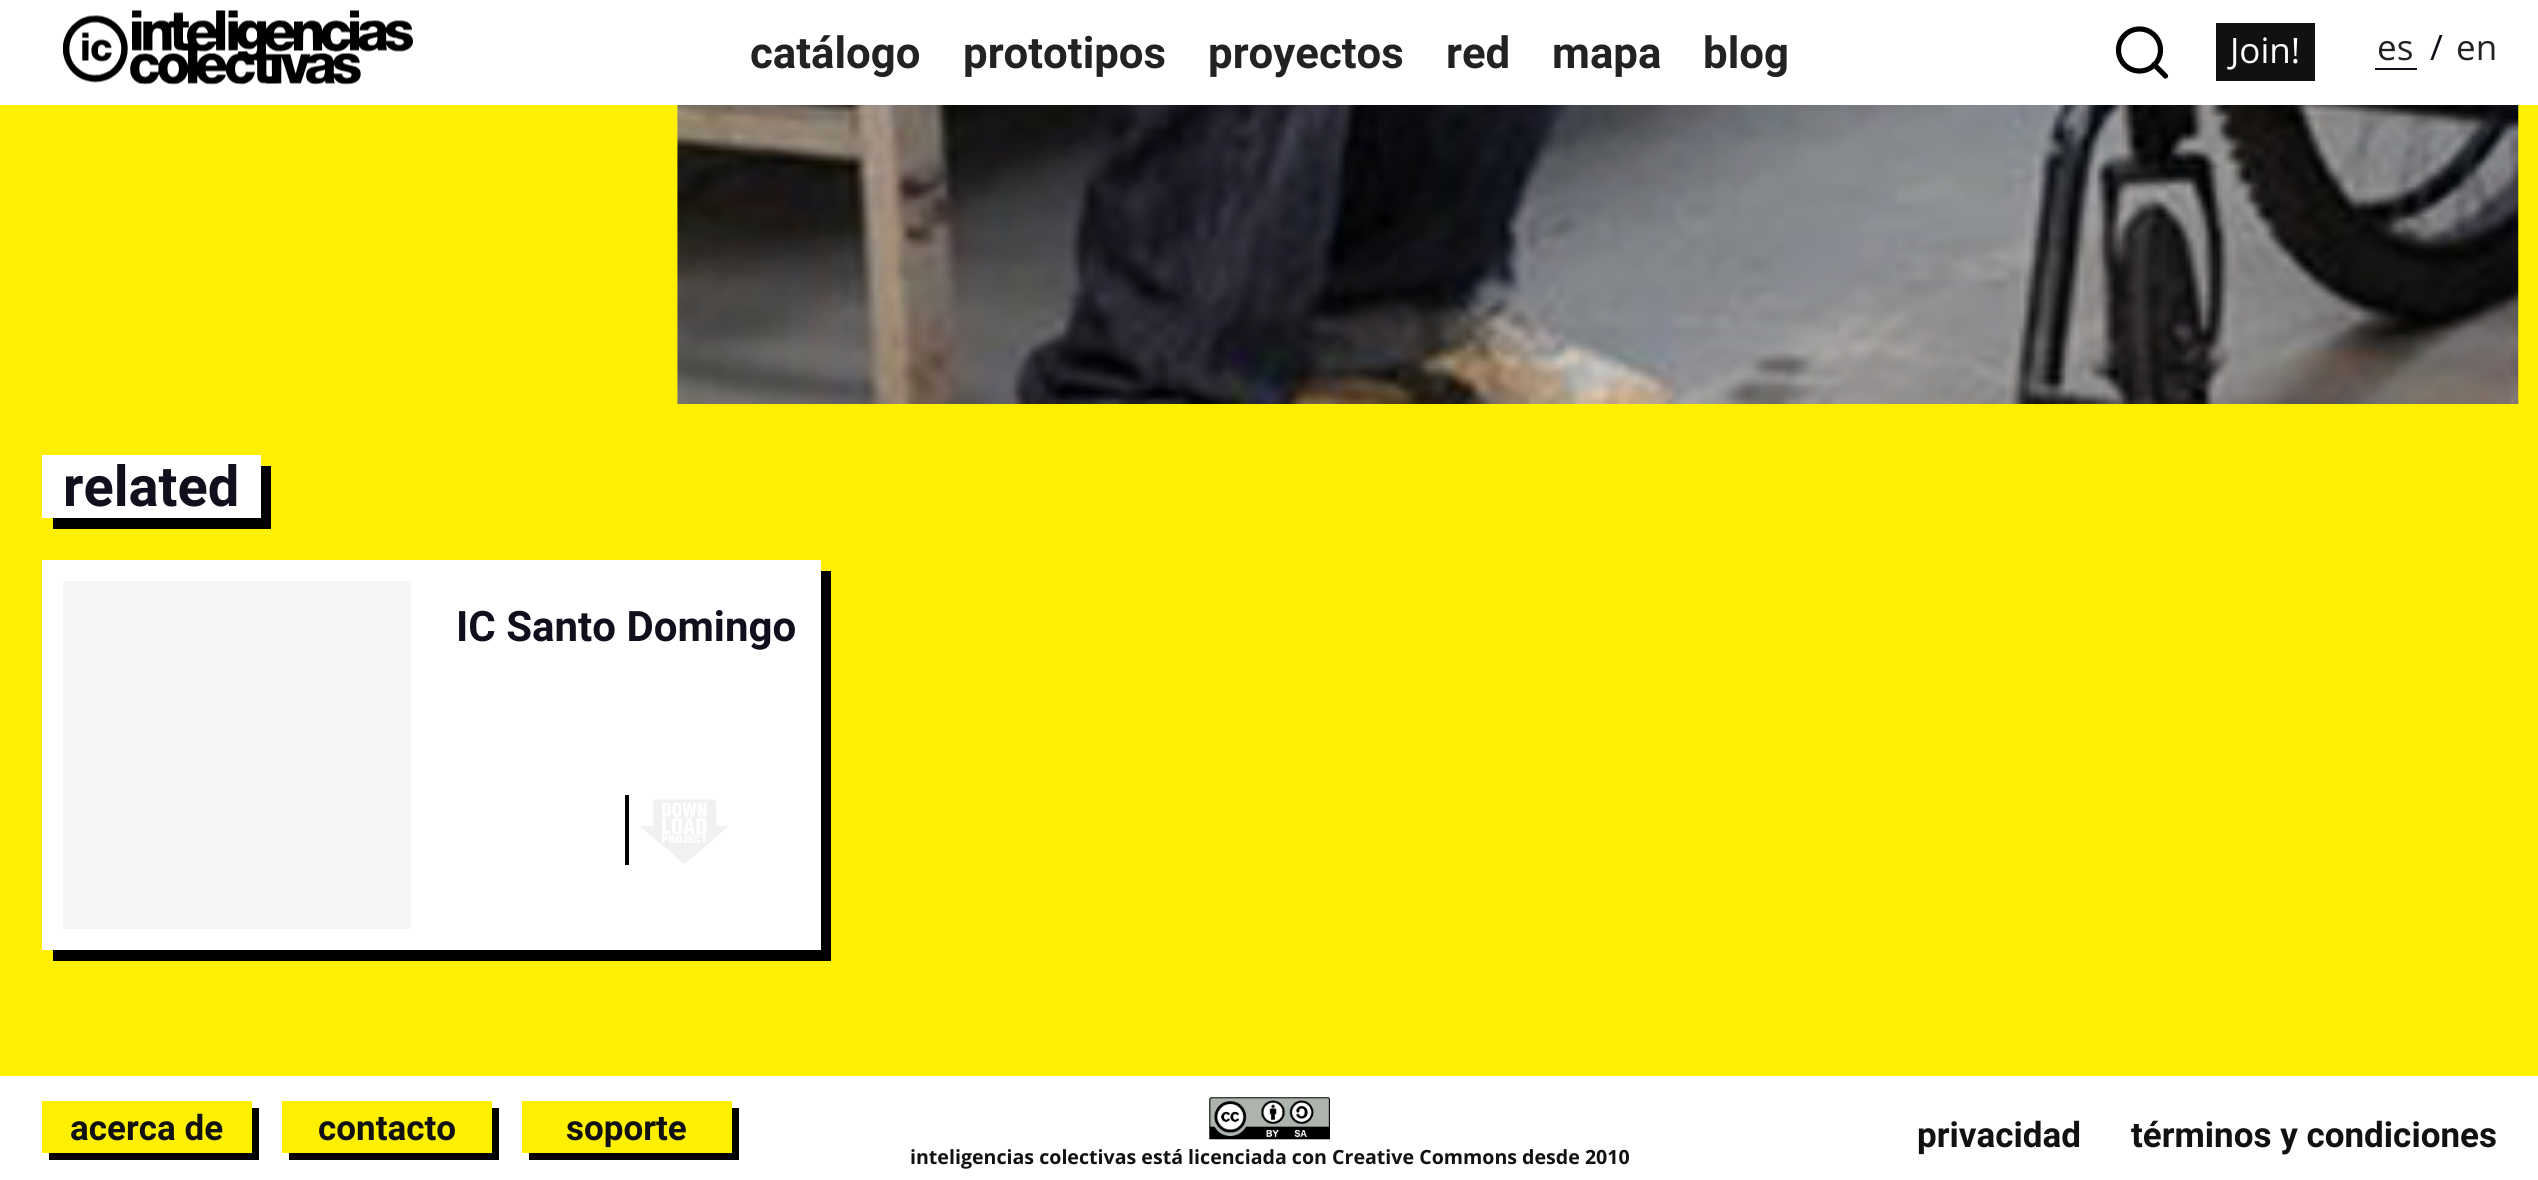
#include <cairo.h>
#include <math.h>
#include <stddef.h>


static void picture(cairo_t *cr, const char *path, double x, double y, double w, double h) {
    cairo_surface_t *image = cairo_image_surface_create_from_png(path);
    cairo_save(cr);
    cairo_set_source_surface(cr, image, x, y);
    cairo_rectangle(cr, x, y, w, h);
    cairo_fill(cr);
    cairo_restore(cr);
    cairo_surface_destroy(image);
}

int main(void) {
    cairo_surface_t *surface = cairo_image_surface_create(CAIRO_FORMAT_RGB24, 2538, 1180);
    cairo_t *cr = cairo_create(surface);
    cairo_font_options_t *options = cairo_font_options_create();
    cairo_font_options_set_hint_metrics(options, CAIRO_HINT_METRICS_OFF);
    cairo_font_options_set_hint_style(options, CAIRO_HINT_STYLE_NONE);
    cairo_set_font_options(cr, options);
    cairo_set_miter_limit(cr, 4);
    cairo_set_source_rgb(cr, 1, 0.941, 0.004);
    cairo_paint(cr);
    cairo_set_source_rgb(cr, 1, 1, 1);
    cairo_rectangle(cr, 0, 0, 2538, 105);
    cairo_fill(cr);
    picture(cr, "img1.png", 63, 10, 350, 75);
    cairo_select_font_face(cr, "Roboto", CAIRO_FONT_SLANT_NORMAL, CAIRO_FONT_WEIGHT_BOLD);
    cairo_set_font_size(cr, 43.75);
    cairo_set_source_rgb(cr, 0.133, 0.133, 0.133);
    cairo_move_to(cr, 750, 68);
    cairo_show_text(cr, "catálogo");
    cairo_move_to(cr, 963, 68);
    cairo_show_text(cr, "prototipos");
    cairo_move_to(cr, 1208, 68);
    cairo_show_text(cr, "proyectos");
    cairo_move_to(cr, 1446, 68);
    cairo_show_text(cr, "red");
    cairo_move_to(cr, 1552, 68);
    cairo_show_text(cr, "mapa");
    cairo_move_to(cr, 1703, 68);
    cairo_show_text(cr, "blog");
    cairo_new_path(cr);
    cairo_arc(cr, 2139.5, 50, 21, 0, 2 * M_PI);
    cairo_set_source_rgb(cr, 0, 0, 0);
    cairo_set_line_width(cr, 5.2);
    cairo_stroke(cr);
    cairo_new_path(cr);
    cairo_move_to(cr, 2165.5, 76);
    cairo_line_to(cr, 2154, 64.5);
    cairo_set_line_cap(cr, CAIRO_LINE_CAP_ROUND);
    cairo_set_line_join(cr, CAIRO_LINE_JOIN_ROUND);
    cairo_stroke(cr);
    cairo_set_source_rgb(cr, 0.067, 0.067, 0.067);
    cairo_rectangle(cr, 2216, 23, 99, 58);
    cairo_fill(cr);
    cairo_select_font_face(cr, "Open Sans", CAIRO_FONT_SLANT_NORMAL, CAIRO_FONT_WEIGHT_NORMAL);
    cairo_set_font_size(cr, 35);
    cairo_set_source_rgb(cr, 1, 1, 1);
    cairo_move_to(cr, 2230, 63);
    cairo_show_text(cr, "Join!");
    cairo_set_source_rgb(cr, 0.133, 0.133, 0.133);
    cairo_move_to(cr, 2377, 60);
    cairo_show_text(cr, "es");
    cairo_set_source_rgb(cr, 0.059, 0.059, 0.118);
    cairo_move_to(cr, 2430, 60);
    cairo_show_text(cr, "/");
    cairo_rectangle(cr, 2375, 68, 42, 2);
    cairo_fill(cr);
    cairo_set_source_rgb(cr, 0.133, 0.133, 0.133);
    cairo_move_to(cr, 2456, 60);
    cairo_show_text(cr, "en");
    picture(cr, "img2.png", 677, 105, 1842, 299);
    cairo_set_source_rgb(cr, 0, 0, 0);
    cairo_new_path(cr);
    cairo_move_to(cr, 53, 518);
    cairo_line_to(cr, 53, 529);
    cairo_line_to(cr, 271, 529);
    cairo_line_to(cr, 271, 466);
    cairo_line_to(cr, 261, 466);
    cairo_line_to(cr, 261, 518);
    cairo_close_path(cr);
    cairo_fill(cr);
    cairo_set_source_rgb(cr, 1, 1, 1);
    cairo_rectangle(cr, 42, 455, 219, 63);
    cairo_fill(cr);
    cairo_select_font_face(cr, "Roboto", CAIRO_FONT_SLANT_NORMAL, CAIRO_FONT_WEIGHT_BOLD);
    cairo_set_font_size(cr, 56);
    cairo_set_source_rgb(cr, 0.059, 0.059, 0.118);
    cairo_move_to(cr, 63, 506);
    cairo_show_text(cr, "related");
    cairo_set_source_rgb(cr, 0, 0, 0);
    cairo_new_path(cr);
    cairo_move_to(cr, 53, 950);
    cairo_line_to(cr, 53, 961);
    cairo_line_to(cr, 831, 961);
    cairo_line_to(cr, 831, 571);
    cairo_line_to(cr, 821, 571);
    cairo_line_to(cr, 821, 950);
    cairo_close_path(cr);
    cairo_fill(cr);
    cairo_set_source_rgb(cr, 1, 1, 1);
    cairo_rectangle(cr, 42, 560, 779, 390);
    cairo_fill(cr);
    cairo_set_source_rgb(cr, 0.961, 0.961, 0.961);
    cairo_rectangle(cr, 63, 581, 348, 348);
    cairo_fill(cr);
    cairo_set_font_size(cr, 42);
    cairo_set_source_rgb(cr, 0.059, 0.059, 0.118);
    cairo_move_to(cr, 456, 641);
    cairo_show_text(cr, "IC Santo Domingo");
    cairo_set_source_rgb(cr, 0, 0, 0);
    cairo_rectangle(cr, 625, 795, 4, 70);
    cairo_fill(cr);
    picture(cr, "img3.png", 641, 799, 87, 65);
    cairo_set_source_rgb(cr, 1, 1, 1);
    cairo_rectangle(cr, 0, 1076, 2538, 104);
    cairo_fill(cr);
    cairo_set_source_rgb(cr, 0, 0, 0);
    cairo_new_path(cr);
    cairo_move_to(cr, 49, 1153);
    cairo_line_to(cr, 49, 1160);
    cairo_line_to(cr, 259, 1160);
    cairo_line_to(cr, 259, 1108);
    cairo_line_to(cr, 252, 1108);
    cairo_line_to(cr, 252, 1153);
    cairo_close_path(cr);
    cairo_fill(cr);
    cairo_set_source_rgb(cr, 1, 0.941, 0.004);
    cairo_rectangle(cr, 42, 1101, 210, 52);
    cairo_fill(cr);
    cairo_set_font_size(cr, 35);
    cairo_set_source_rgb(cr, 0.067, 0.067, 0.067);
    cairo_move_to(cr, 70, 1140);
    cairo_show_text(cr, "acerca de");
    cairo_set_source_rgb(cr, 0, 0, 0);
    cairo_new_path(cr);
    cairo_move_to(cr, 289, 1153);
    cairo_line_to(cr, 289, 1160);
    cairo_line_to(cr, 499, 1160);
    cairo_line_to(cr, 499, 1108);
    cairo_line_to(cr, 492, 1108);
    cairo_line_to(cr, 492, 1153);
    cairo_close_path(cr);
    cairo_fill(cr);
    cairo_set_source_rgb(cr, 1, 0.941, 0.004);
    cairo_rectangle(cr, 282, 1101, 210, 52);
    cairo_fill(cr);
    cairo_set_source_rgb(cr, 0.067, 0.067, 0.067);
    cairo_move_to(cr, 318, 1140);
    cairo_show_text(cr, "contacto");
    cairo_set_source_rgb(cr, 0, 0, 0);
    cairo_new_path(cr);
    cairo_move_to(cr, 529, 1153);
    cairo_line_to(cr, 529, 1160);
    cairo_line_to(cr, 739, 1160);
    cairo_line_to(cr, 739, 1108);
    cairo_line_to(cr, 732, 1108);
    cairo_line_to(cr, 732, 1153);
    cairo_close_path(cr);
    cairo_fill(cr);
    cairo_set_source_rgb(cr, 1, 0.941, 0.004);
    cairo_rectangle(cr, 522, 1101, 210, 52);
    cairo_fill(cr);
    cairo_set_source_rgb(cr, 0.067, 0.067, 0.067);
    cairo_move_to(cr, 566, 1140);
    cairo_show_text(cr, "soporte");
    cairo_move_to(cr, 1917, 1147);
    cairo_show_text(cr, "privacidad");
    cairo_move_to(cr, 2131, 1147);
    cairo_show_text(cr, "términos y condiciones");
    picture(cr, "img4.png", 1209, 1097, 121, 43);
    cairo_select_font_face(cr, "Open Sans", CAIRO_FONT_SLANT_NORMAL, CAIRO_FONT_WEIGHT_BOLD);
    cairo_set_font_size(cr, 19.6);
    cairo_move_to(cr, 910, 1164);
    cairo_show_text(cr, "inteligencias colectivas está licenciada con Creative Commons desde 2010");
    cairo_surface_write_to_png(surface, "page.png");
    cairo_font_options_destroy(options);
    cairo_destroy(cr);
    cairo_surface_destroy(surface);
    return 0;
}
